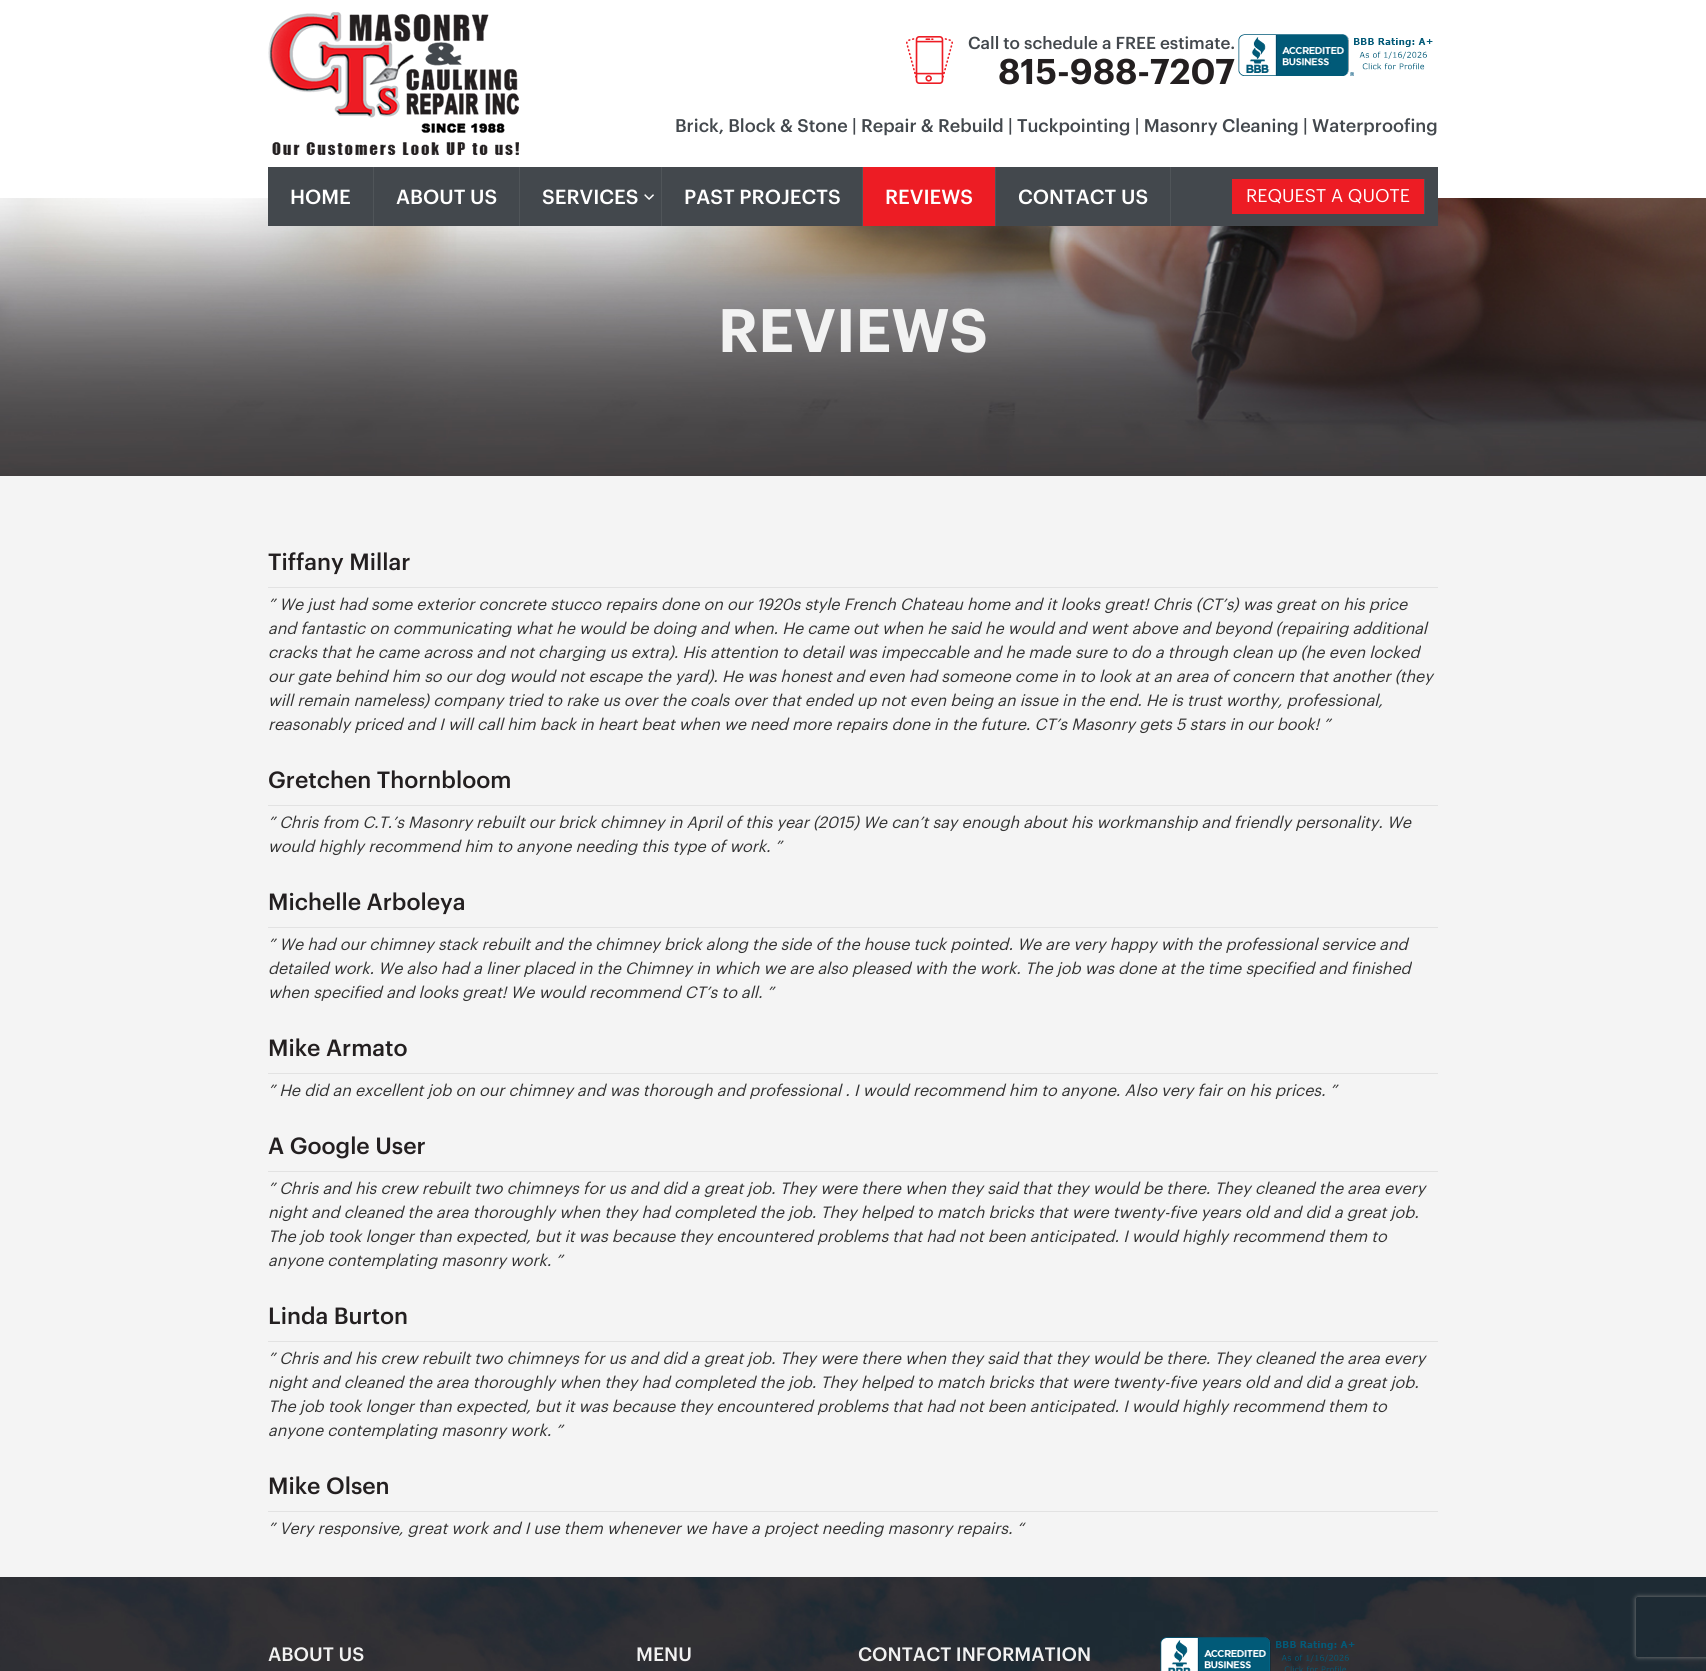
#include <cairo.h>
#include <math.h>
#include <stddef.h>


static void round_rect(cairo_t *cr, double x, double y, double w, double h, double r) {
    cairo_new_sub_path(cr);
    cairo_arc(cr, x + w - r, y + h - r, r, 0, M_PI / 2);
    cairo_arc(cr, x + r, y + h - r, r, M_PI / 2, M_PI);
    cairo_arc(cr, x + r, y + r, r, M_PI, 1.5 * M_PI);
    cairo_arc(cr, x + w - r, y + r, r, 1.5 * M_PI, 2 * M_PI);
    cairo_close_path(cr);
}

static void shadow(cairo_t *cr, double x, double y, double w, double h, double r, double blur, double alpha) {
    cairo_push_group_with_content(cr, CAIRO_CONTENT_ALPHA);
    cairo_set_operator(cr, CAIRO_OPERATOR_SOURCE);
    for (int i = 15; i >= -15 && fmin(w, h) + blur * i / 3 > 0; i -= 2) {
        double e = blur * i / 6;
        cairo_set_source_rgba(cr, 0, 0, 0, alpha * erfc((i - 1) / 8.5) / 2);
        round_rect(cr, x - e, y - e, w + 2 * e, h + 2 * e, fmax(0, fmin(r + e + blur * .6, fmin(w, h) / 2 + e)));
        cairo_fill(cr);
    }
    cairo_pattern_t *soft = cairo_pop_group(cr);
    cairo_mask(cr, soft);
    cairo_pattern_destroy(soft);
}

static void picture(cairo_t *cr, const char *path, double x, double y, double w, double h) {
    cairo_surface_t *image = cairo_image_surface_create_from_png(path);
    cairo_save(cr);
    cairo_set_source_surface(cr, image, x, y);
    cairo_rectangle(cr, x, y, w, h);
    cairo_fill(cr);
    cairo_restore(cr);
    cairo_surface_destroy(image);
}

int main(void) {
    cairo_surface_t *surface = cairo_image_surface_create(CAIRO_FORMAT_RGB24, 1706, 1671);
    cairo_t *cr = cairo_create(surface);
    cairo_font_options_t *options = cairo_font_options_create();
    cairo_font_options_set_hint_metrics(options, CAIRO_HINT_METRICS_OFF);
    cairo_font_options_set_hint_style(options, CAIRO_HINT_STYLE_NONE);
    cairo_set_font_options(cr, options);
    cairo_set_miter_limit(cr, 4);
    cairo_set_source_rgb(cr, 1, 1, 1);
    cairo_paint(cr);
    picture(cr, "img1.png", 268, 12, 251, 143);
    picture(cr, "img2.png", 906, 36, 47, 48);
    cairo_select_font_face(cr, "Graphik Medium", CAIRO_FONT_SLANT_NORMAL, CAIRO_FONT_WEIGHT_NORMAL);
    cairo_set_font_size(cr, 17);
    cairo_set_source_rgb(cr, 0.263, 0.282, 0.302);
    cairo_move_to(cr, 968, 49);
    cairo_show_text(cr, "Call to schedule a FREE estimate.");
    cairo_select_font_face(cr, "Graphik SemiBold", CAIRO_FONT_SLANT_NORMAL, CAIRO_FONT_WEIGHT_NORMAL);
    cairo_set_font_size(cr, 35);
    cairo_set_source_rgb(cr, 0.137, 0.122, 0.125);
    cairo_move_to(cr, 998, 84);
    cairo_show_text(cr, "815-988-7207");
    picture(cr, "img3.png", 1238, 34, 195, 42);
    cairo_select_font_face(cr, "Graphik Medium", CAIRO_FONT_SLANT_NORMAL, CAIRO_FONT_WEIGHT_NORMAL);
    cairo_set_font_size(cr, 18);
    cairo_set_source_rgb(cr, 0.263, 0.282, 0.302);
    cairo_move_to(cr, 675, 132);
    cairo_show_text(cr, "Brick, Block & Stone | Repair & Rebuild | Tuckpointing | Masonry Cleaning | Waterproofing");
    picture(cr, "img5.png", 0, 198, 1706, 278);
    cairo_rectangle(cr, 268, 167, 1170, 59);
    cairo_fill(cr);
    cairo_set_source_rgb(cr, 0.314, 0.333, 0.349);
    cairo_rectangle(cr, 373, 167, 1, 59);
    cairo_fill(cr);
    cairo_set_font_size(cr, 20);
    cairo_set_source_rgb(cr, 1, 1, 1);
    cairo_move_to(cr, 290, 204);
    cairo_show_text(cr, "HOME");
    cairo_set_source_rgb(cr, 0.314, 0.333, 0.349);
    cairo_rectangle(cr, 519, 167, 1, 59);
    cairo_fill(cr);
    cairo_set_source_rgb(cr, 1, 1, 1);
    cairo_move_to(cr, 396, 204);
    cairo_show_text(cr, "ABOUT US");
    cairo_set_source_rgb(cr, 0.314, 0.333, 0.349);
    cairo_rectangle(cr, 661, 167, 1, 59);
    cairo_fill(cr);
    picture(cr, "img4.png", 644, 194, 10, 6);
    cairo_set_source_rgb(cr, 1, 1, 1);
    cairo_move_to(cr, 542, 204);
    cairo_show_text(cr, "SERVICES");
    cairo_set_source_rgb(cr, 0.314, 0.333, 0.349);
    cairo_rectangle(cr, 862, 167, 1, 59);
    cairo_fill(cr);
    cairo_set_source_rgb(cr, 1, 1, 1);
    cairo_move_to(cr, 684, 204);
    cairo_show_text(cr, "PAST PROJECTS");
    cairo_set_source_rgb(cr, 0.314, 0.333, 0.349);
    cairo_rectangle(cr, 995, 167, 1, 59);
    cairo_fill(cr);
    cairo_set_source_rgb(cr, 0.929, 0.11, 0.141);
    cairo_rectangle(cr, 863, 167, 132, 59);
    cairo_fill(cr);
    cairo_set_source_rgb(cr, 1, 1, 1);
    cairo_move_to(cr, 885, 204);
    cairo_show_text(cr, "REVIEWS");
    cairo_set_source_rgb(cr, 0.314, 0.333, 0.349);
    cairo_rectangle(cr, 1170, 167, 1, 59);
    cairo_fill(cr);
    cairo_set_source_rgb(cr, 1, 1, 1);
    cairo_move_to(cr, 1018, 204);
    cairo_show_text(cr, "CONTACT US");
    cairo_set_source_rgb(cr, 0.314, 0.333, 0.349);
    cairo_rectangle(cr, 1424, 179, 1, 35);
    cairo_fill(cr);
    cairo_set_source_rgb(cr, 0.929, 0.11, 0.141);
    cairo_rectangle(cr, 1232, 179, 192, 35);
    cairo_fill(cr);
    cairo_select_font_face(cr, "Graphik", CAIRO_FONT_SLANT_NORMAL, CAIRO_FONT_WEIGHT_NORMAL);
    cairo_set_font_size(cr, 18);
    cairo_set_source_rgb(cr, 1, 1, 1);
    cairo_move_to(cr, 1246, 202);
    cairo_show_text(cr, "REQUEST A QUOTE");
    cairo_select_font_face(cr, "Graphik SemiBold", CAIRO_FONT_SLANT_NORMAL, CAIRO_FONT_WEIGHT_NORMAL);
    cairo_set_font_size(cr, 60);
    cairo_set_source_rgb(cr, 0.949, 0.949, 0.949);
    cairo_move_to(cr, 718, 352);
    cairo_show_text(cr, "REVIEWS");
    cairo_set_source_rgb(cr, 0.957, 0.957, 0.957);
    cairo_rectangle(cr, 0, 476, 1706, 1101);
    cairo_fill(cr);
    cairo_set_source_rgb(cr, 0.886, 0.886, 0.886);
    cairo_rectangle(cr, 268, 587, 1170, 1);
    cairo_fill(cr);
    cairo_select_font_face(cr, "Graphik Medium", CAIRO_FONT_SLANT_NORMAL, CAIRO_FONT_WEIGHT_NORMAL);
    cairo_set_font_size(cr, 23);
    cairo_set_source_rgb(cr, 0.137, 0.122, 0.125);
    cairo_move_to(cr, 268, 570);
    cairo_show_text(cr, "Tiffany Millar");
    cairo_select_font_face(cr, "Graphik", CAIRO_FONT_SLANT_ITALIC, CAIRO_FONT_WEIGHT_NORMAL);
    cairo_set_font_size(cr, 16);
    cairo_set_source_rgb(cr, 0.2, 0.2, 0.2);
    cairo_move_to(cr, 268, 610);
    cairo_show_text(cr, "” We just had some exterior concrete stucco repairs done on our 1920s style French Chateau home and it looks great! Chris (CT’s) was great on his price");
    cairo_move_to(cr, 268, 634);
    cairo_show_text(cr, "and fantastic on communicating what he would be doing and when. He came out when he said he would and went above and beyond (repairing additional");
    cairo_move_to(cr, 268, 658);
    cairo_show_text(cr, "cracks that he came across and not charging us extra). His attention to detail was impeccable and he made sure to do a through clean up (he even locked");
    cairo_move_to(cr, 268, 682);
    cairo_show_text(cr, "our gate behind him so our dog would not escape the yard). He was honest and even had someone come in to look at an area of concern that another (they");
    cairo_move_to(cr, 268, 706);
    cairo_show_text(cr, "will remain nameless) company tried to rake us over the coals over that ended up not even being an issue in the end. He is trust worthy, professional,");
    cairo_move_to(cr, 268, 730);
    cairo_show_text(cr, "reasonably priced and I will call him back in heart beat when we need more repairs done in the future. CT’s Masonry gets 5 stars in our book! ”");
    cairo_set_source_rgb(cr, 0.886, 0.886, 0.886);
    cairo_rectangle(cr, 268, 805, 1170, 1);
    cairo_fill(cr);
    cairo_select_font_face(cr, "Graphik Medium", CAIRO_FONT_SLANT_NORMAL, CAIRO_FONT_WEIGHT_NORMAL);
    cairo_set_font_size(cr, 23);
    cairo_set_source_rgb(cr, 0.137, 0.122, 0.125);
    cairo_move_to(cr, 268, 788);
    cairo_show_text(cr, "Gretchen Thornbloom");
    cairo_select_font_face(cr, "Graphik", CAIRO_FONT_SLANT_ITALIC, CAIRO_FONT_WEIGHT_NORMAL);
    cairo_set_font_size(cr, 16);
    cairo_set_source_rgb(cr, 0.2, 0.2, 0.2);
    cairo_move_to(cr, 268, 828);
    cairo_show_text(cr, "” Chris from C.T.’s Masonry rebuilt our brick chimney in April of this year (2015) We can’t say enough about his workmanship and friendly personality. We");
    cairo_move_to(cr, 268, 852);
    cairo_show_text(cr, "would highly recommend him to anyone needing this type of work. ”");
    cairo_set_source_rgb(cr, 0.886, 0.886, 0.886);
    cairo_rectangle(cr, 268, 927, 1170, 1);
    cairo_fill(cr);
    cairo_select_font_face(cr, "Graphik Medium", CAIRO_FONT_SLANT_NORMAL, CAIRO_FONT_WEIGHT_NORMAL);
    cairo_set_font_size(cr, 23);
    cairo_set_source_rgb(cr, 0.137, 0.122, 0.125);
    cairo_move_to(cr, 268, 910);
    cairo_show_text(cr, "Michelle Arboleya");
    cairo_select_font_face(cr, "Graphik", CAIRO_FONT_SLANT_ITALIC, CAIRO_FONT_WEIGHT_NORMAL);
    cairo_set_font_size(cr, 16);
    cairo_set_source_rgb(cr, 0.2, 0.2, 0.2);
    cairo_move_to(cr, 268, 950);
    cairo_show_text(cr, "” We had our chimney stack rebuilt and the chimney brick along the side of the house tuck pointed. We are very happy with the professional service and");
    cairo_move_to(cr, 268, 974);
    cairo_show_text(cr, "detailed work. We also had a liner placed in the Chimney in which we are also pleased with the work. The job was done at the time specified and finished");
    cairo_move_to(cr, 268, 998);
    cairo_show_text(cr, "when specified and looks great! We would recommend CT’s to all. ”");
    cairo_set_source_rgb(cr, 0.886, 0.886, 0.886);
    cairo_rectangle(cr, 268, 1073, 1170, 1);
    cairo_fill(cr);
    cairo_select_font_face(cr, "Graphik Medium", CAIRO_FONT_SLANT_NORMAL, CAIRO_FONT_WEIGHT_NORMAL);
    cairo_set_font_size(cr, 23);
    cairo_set_source_rgb(cr, 0.137, 0.122, 0.125);
    cairo_move_to(cr, 268, 1056);
    cairo_show_text(cr, "Mike Armato");
    cairo_select_font_face(cr, "Graphik", CAIRO_FONT_SLANT_ITALIC, CAIRO_FONT_WEIGHT_NORMAL);
    cairo_set_font_size(cr, 16);
    cairo_set_source_rgb(cr, 0.2, 0.2, 0.2);
    cairo_move_to(cr, 268, 1096);
    cairo_show_text(cr, "” He did an excellent job on our chimney and was thorough and professional . I would recommend him to anyone. Also very fair on his prices. ”");
    cairo_set_source_rgb(cr, 0.886, 0.886, 0.886);
    cairo_rectangle(cr, 268, 1171, 1170, 1);
    cairo_fill(cr);
    cairo_select_font_face(cr, "Graphik Medium", CAIRO_FONT_SLANT_NORMAL, CAIRO_FONT_WEIGHT_NORMAL);
    cairo_set_font_size(cr, 23);
    cairo_set_source_rgb(cr, 0.137, 0.122, 0.125);
    cairo_move_to(cr, 268, 1154);
    cairo_show_text(cr, "A Google User");
    cairo_select_font_face(cr, "Graphik", CAIRO_FONT_SLANT_ITALIC, CAIRO_FONT_WEIGHT_NORMAL);
    cairo_set_font_size(cr, 16);
    cairo_set_source_rgb(cr, 0.2, 0.2, 0.2);
    cairo_move_to(cr, 268, 1194);
    cairo_show_text(cr, "” Chris and his crew rebuilt two chimneys for us and did a great job. They were there when they said that they would be there. They cleaned the area every");
    cairo_move_to(cr, 268, 1218);
    cairo_show_text(cr, "night and cleaned the area thoroughly when they had completed the job. They helped to match bricks that were twenty-five years old and did a great job.");
    cairo_move_to(cr, 268, 1242);
    cairo_show_text(cr, "The job took longer than expected, but it was because they encountered problems that had not been anticipated. I would highly recommend them to");
    cairo_move_to(cr, 268, 1266);
    cairo_show_text(cr, "anyone contemplating masonry work. ”");
    cairo_set_source_rgb(cr, 0.886, 0.886, 0.886);
    cairo_rectangle(cr, 268, 1341, 1170, 1);
    cairo_fill(cr);
    cairo_select_font_face(cr, "Graphik Medium", CAIRO_FONT_SLANT_NORMAL, CAIRO_FONT_WEIGHT_NORMAL);
    cairo_set_font_size(cr, 23);
    cairo_set_source_rgb(cr, 0.137, 0.122, 0.125);
    cairo_move_to(cr, 268, 1324);
    cairo_show_text(cr, "Linda Burton");
    cairo_select_font_face(cr, "Graphik", CAIRO_FONT_SLANT_ITALIC, CAIRO_FONT_WEIGHT_NORMAL);
    cairo_set_font_size(cr, 16);
    cairo_set_source_rgb(cr, 0.2, 0.2, 0.2);
    cairo_move_to(cr, 268, 1364);
    cairo_show_text(cr, "” Chris and his crew rebuilt two chimneys for us and did a great job. They were there when they said that they would be there. They cleaned the area every");
    cairo_move_to(cr, 268, 1388);
    cairo_show_text(cr, "night and cleaned the area thoroughly when they had completed the job. They helped to match bricks that were twenty-five years old and did a great job.");
    cairo_move_to(cr, 268, 1412);
    cairo_show_text(cr, "The job took longer than expected, but it was because they encountered problems that had not been anticipated. I would highly recommend them to");
    cairo_move_to(cr, 268, 1436);
    cairo_show_text(cr, "anyone contemplating masonry work. ”");
    cairo_set_source_rgb(cr, 0.886, 0.886, 0.886);
    cairo_rectangle(cr, 268, 1511, 1170, 1);
    cairo_fill(cr);
    cairo_select_font_face(cr, "Graphik Medium", CAIRO_FONT_SLANT_NORMAL, CAIRO_FONT_WEIGHT_NORMAL);
    cairo_set_font_size(cr, 23);
    cairo_set_source_rgb(cr, 0.137, 0.122, 0.125);
    cairo_move_to(cr, 268, 1494);
    cairo_show_text(cr, "Mike Olsen");
    cairo_select_font_face(cr, "Graphik", CAIRO_FONT_SLANT_ITALIC, CAIRO_FONT_WEIGHT_NORMAL);
    cairo_set_font_size(cr, 16);
    cairo_set_source_rgb(cr, 0.2, 0.2, 0.2);
    cairo_move_to(cr, 268, 1534);
    cairo_show_text(cr, "” Very responsive, great work and I use them whenever we have a project needing masonry repairs. “");
    picture(cr, "img6.png", 0, 1577, 1706, 94);
    cairo_select_font_face(cr, "Graphik Medium", CAIRO_FONT_SLANT_NORMAL, CAIRO_FONT_WEIGHT_NORMAL);
    cairo_set_font_size(cr, 19);
    cairo_set_source_rgb(cr, 0.949, 0.949, 0.949);
    cairo_move_to(cr, 268, 1661);
    cairo_show_text(cr, "ABOUT US");
    cairo_move_to(cr, 636, 1661);
    cairo_show_text(cr, "MENU");
    cairo_move_to(cr, 858, 1661);
    cairo_show_text(cr, "CONTACT INFORMATION");
    picture(cr, "img7.png", 1160, 1637, 195, 34);
    cairo_save(cr);
    cairo_set_fill_rule(cr, CAIRO_FILL_RULE_EVEN_ODD);
    cairo_new_path(cr);
    cairo_move_to(cr, 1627, 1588);
    cairo_line_to(cr, 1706, 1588);
    cairo_line_to(cr, 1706, 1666);
    cairo_line_to(cr, 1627, 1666);
    cairo_close_path(cr);
    cairo_move_to(cr, 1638, 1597);
    cairo_line_to(cr, 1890, 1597);
    cairo_curve_to(cr, 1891, 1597, 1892, 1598, 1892, 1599);
    cairo_line_to(cr, 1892, 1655);
    cairo_curve_to(cr, 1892, 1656, 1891, 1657, 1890, 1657);
    cairo_line_to(cr, 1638, 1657);
    cairo_curve_to(cr, 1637, 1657, 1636, 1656, 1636, 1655);
    cairo_line_to(cr, 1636, 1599);
    cairo_curve_to(cr, 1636, 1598, 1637, 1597, 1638, 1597);
    cairo_close_path(cr);
    cairo_clip(cr);
    cairo_set_source_rgb(cr, 0.502, 0.502, 0.502);
    shadow(cr, 1636, 1597, 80, 60, 2, 2.5, 1);
    cairo_restore(cr);
    cairo_surface_write_to_png(surface, "page.png");
    cairo_font_options_destroy(options);
    cairo_destroy(cr);
    cairo_surface_destroy(surface);
    return 0;
}
